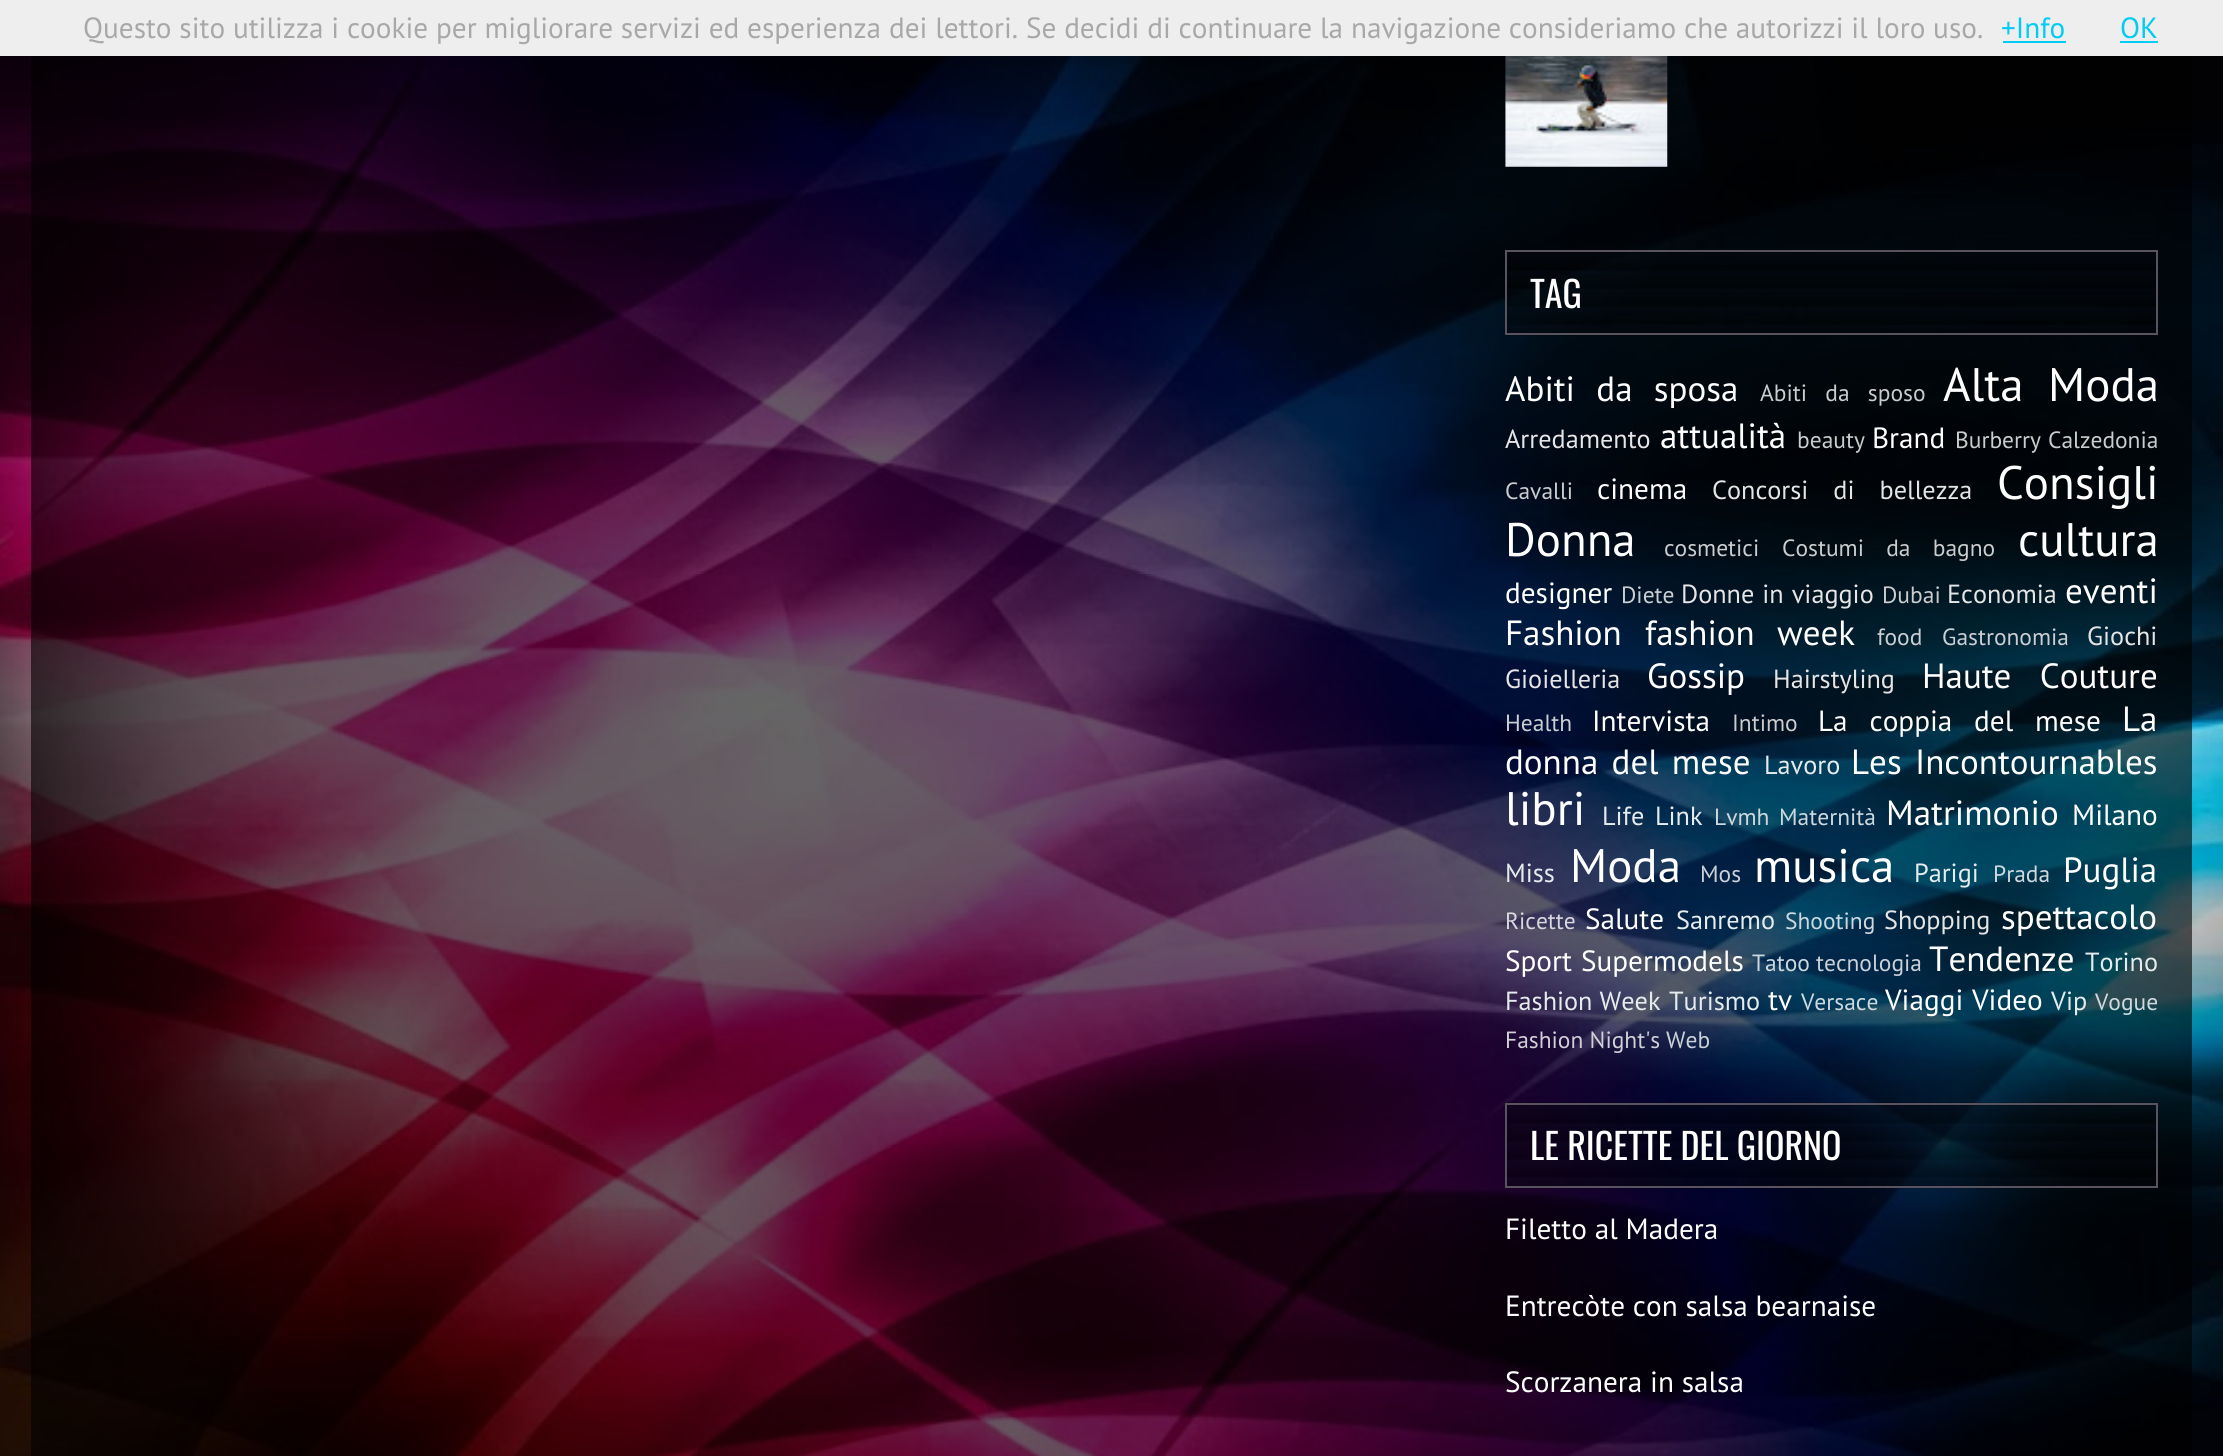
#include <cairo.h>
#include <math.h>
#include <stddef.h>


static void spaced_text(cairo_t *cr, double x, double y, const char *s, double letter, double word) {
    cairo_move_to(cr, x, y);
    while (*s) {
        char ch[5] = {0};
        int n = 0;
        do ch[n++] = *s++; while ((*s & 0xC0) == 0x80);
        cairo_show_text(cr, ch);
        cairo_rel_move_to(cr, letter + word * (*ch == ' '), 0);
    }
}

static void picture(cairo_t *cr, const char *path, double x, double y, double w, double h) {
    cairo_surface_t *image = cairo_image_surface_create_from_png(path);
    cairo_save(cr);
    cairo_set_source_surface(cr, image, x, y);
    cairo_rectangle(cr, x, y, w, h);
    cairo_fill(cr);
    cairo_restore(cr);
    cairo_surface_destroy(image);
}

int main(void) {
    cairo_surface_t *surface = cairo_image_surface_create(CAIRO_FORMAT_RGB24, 2223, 1456);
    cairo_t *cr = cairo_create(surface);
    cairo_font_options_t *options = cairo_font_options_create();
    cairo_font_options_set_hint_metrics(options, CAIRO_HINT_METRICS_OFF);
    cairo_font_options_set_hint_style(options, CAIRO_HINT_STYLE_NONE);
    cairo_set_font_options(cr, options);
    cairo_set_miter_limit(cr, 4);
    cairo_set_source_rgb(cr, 1, 1, 1);
    cairo_paint(cr);
    picture(cr, "img1.png", 0, 56, 2223, 1400);
    cairo_set_source_rgb(cr, 0.933, 0.933, 0.933);
    cairo_rectangle(cr, 0, 0, 2223, 56);
    cairo_fill(cr);
    cairo_select_font_face(cr, "PT Sans", CAIRO_FONT_SLANT_NORMAL, CAIRO_FONT_WEIGHT_NORMAL);
    cairo_set_font_size(cr, 29.25);
    cairo_set_source_rgb(cr, 0.659, 0.659, 0.659);
    cairo_move_to(cr, 83, 38);
    cairo_show_text(cr, "Questo sito utilizza i cookie per migliorare servizi ed esperienza dei lettori. Se decidi di continuare la navigazione consideriamo che autorizzi il loro uso.");
    cairo_set_source_rgb(cr, 0, 0.8, 0.957);
    cairo_move_to(cr, 2001, 38);
    cairo_show_text(cr, "+Info");
    cairo_rectangle(cr, 2003, 41, 63, 2);
    cairo_fill(cr);
    cairo_move_to(cr, 2120, 38);
    cairo_show_text(cr, "OK");
    cairo_rectangle(cr, 2120, 41, 38, 2);
    cairo_fill(cr);
    picture(cr, "img2.png", 1505, 56, 163, 111);
    picture(cr, "img3.png", 1505, 252, 652, 84);
    cairo_rectangle(cr, 1506, 251, 651, 83);
    cairo_set_source_rgb(cr, 0.349, 0.325, 0.373);
    cairo_stroke(cr);
    cairo_select_font_face(cr, "Oswald", CAIRO_FONT_SLANT_NORMAL, CAIRO_FONT_WEIGHT_NORMAL);
    cairo_set_font_size(cr, 36);
    cairo_set_source_rgb(cr, 1, 1, 1);
    cairo_move_to(cr, 1530, 308);
    cairo_show_text(cr, "TAG");
    cairo_select_font_face(cr, "PT Sans", CAIRO_FONT_SLANT_NORMAL, CAIRO_FONT_WEIGHT_NORMAL);
    cairo_set_font_size(cr, 35);
    spaced_text(cr, 1505, 401, "Abiti da sposa", 0, 12);
    cairo_set_font_size(cr, 23.5);
    cairo_set_source_rgb(cr, 0.796, 0.8, 0.804);
    spaced_text(cr, 1760, 401, "Abiti da sposo", 0, 12);
    cairo_set_font_size(cr, 47);
    cairo_set_source_rgb(cr, 1, 1, 1);
    spaced_text(cr, 1943, 401, "Alta Moda", 0, 12);
    cairo_set_font_size(cr, 26.25);
    cairo_set_source_rgb(cr, 0.898, 0.898, 0.902);
    cairo_move_to(cr, 1505, 448);
    cairo_show_text(cr, "Arredamento");
    cairo_set_font_size(cr, 35);
    cairo_set_source_rgb(cr, 1, 1, 1);
    cairo_move_to(cr, 1660, 448);
    cairo_show_text(cr, "attualità");
    cairo_set_font_size(cr, 23.5);
    cairo_set_source_rgb(cr, 0.796, 0.8, 0.804);
    cairo_move_to(cr, 1797, 448);
    cairo_show_text(cr, "beauty");
    cairo_set_font_size(cr, 29.25);
    cairo_set_source_rgb(cr, 1, 1, 1);
    cairo_move_to(cr, 1872, 448);
    cairo_show_text(cr, "Brand");
    cairo_set_font_size(cr, 23.5);
    cairo_set_source_rgb(cr, 0.796, 0.8, 0.804);
    cairo_move_to(cr, 1955, 448);
    cairo_show_text(cr, "Burberry");
    cairo_move_to(cr, 2048, 448);
    cairo_show_text(cr, "Calzedonia");
    cairo_move_to(cr, 1505, 499);
    cairo_show_text(cr, "Cavalli");
    cairo_set_font_size(cr, 29.25);
    cairo_set_source_rgb(cr, 1, 1, 1);
    cairo_move_to(cr, 1597, 499);
    cairo_show_text(cr, "cinema");
    cairo_set_font_size(cr, 26.25);
    cairo_set_source_rgb(cr, 0.898, 0.898, 0.902);
    spaced_text(cr, 1712, 499, "Concorsi di bellezza", 0, 18);
    cairo_set_font_size(cr, 47);
    cairo_set_source_rgb(cr, 1, 1, 1);
    cairo_move_to(cr, 1997, 499);
    cairo_show_text(cr, "Consigli");
    cairo_move_to(cr, 1505, 556);
    cairo_show_text(cr, "Donna");
    cairo_set_font_size(cr, 23.5);
    cairo_set_source_rgb(cr, 0.796, 0.8, 0.804);
    cairo_move_to(cr, 1664, 556);
    cairo_show_text(cr, "cosmetici");
    spaced_text(cr, 1782, 556, "Costumi da bagno", 0, 16);
    cairo_set_font_size(cr, 47);
    cairo_set_source_rgb(cr, 1, 1, 1);
    cairo_move_to(cr, 2018, 556);
    cairo_show_text(cr, "cultura");
    cairo_set_font_size(cr, 29.25);
    cairo_move_to(cr, 1505, 603);
    cairo_show_text(cr, "designer");
    cairo_set_font_size(cr, 23.5);
    cairo_set_source_rgb(cr, 0.796, 0.812, 0.827);
    cairo_move_to(cr, 1621, 603);
    cairo_show_text(cr, "Diete");
    cairo_set_font_size(cr, 26.25);
    cairo_set_source_rgb(cr, 0.898, 0.898, 0.902);
    spaced_text(cr, 1681, 603, "Donne in viaggio", 0, 1);
    cairo_set_font_size(cr, 23.5);
    cairo_set_source_rgb(cr, 0.796, 0.8, 0.804);
    cairo_move_to(cr, 1882, 603);
    cairo_show_text(cr, "Dubai");
    cairo_set_font_size(cr, 26.25);
    cairo_set_source_rgb(cr, 0.898, 0.898, 0.902);
    cairo_move_to(cr, 1947, 603);
    cairo_show_text(cr, "Economia");
    cairo_set_font_size(cr, 35);
    cairo_set_source_rgb(cr, 1, 1, 1);
    cairo_move_to(cr, 2065, 603);
    cairo_show_text(cr, "eventi");
    cairo_move_to(cr, 1505, 645);
    cairo_show_text(cr, "Fashion");
    spaced_text(cr, 1645, 645, "fashion week", 0, 13);
    cairo_set_font_size(cr, 23.5);
    cairo_set_source_rgb(cr, 0.796, 0.812, 0.827);
    cairo_move_to(cr, 1877, 645);
    cairo_show_text(cr, "food");
    cairo_move_to(cr, 1942, 645);
    cairo_show_text(cr, "Gastronomia");
    cairo_set_font_size(cr, 26.25);
    cairo_set_source_rgb(cr, 0.898, 0.898, 0.902);
    cairo_move_to(cr, 2087, 645);
    cairo_show_text(cr, "Giochi");
    cairo_move_to(cr, 1505, 688);
    cairo_show_text(cr, "Gioielleria");
    cairo_set_font_size(cr, 35);
    cairo_set_source_rgb(cr, 1, 1, 1);
    cairo_move_to(cr, 1647, 688);
    cairo_show_text(cr, "Gossip");
    cairo_set_font_size(cr, 26.25);
    cairo_set_source_rgb(cr, 0.898, 0.898, 0.902);
    cairo_move_to(cr, 1773, 688);
    cairo_show_text(cr, "Hairstyling");
    cairo_set_font_size(cr, 35);
    cairo_set_source_rgb(cr, 1, 1, 1);
    spaced_text(cr, 1922, 688, "Haute Couture", 0, 19);
    cairo_set_font_size(cr, 23.5);
    cairo_set_source_rgb(cr, 0.796, 0.812, 0.827);
    cairo_move_to(cr, 1505, 731);
    cairo_show_text(cr, "Health");
    cairo_set_font_size(cr, 29.25);
    cairo_set_source_rgb(cr, 1, 1, 1);
    cairo_move_to(cr, 1592, 731);
    cairo_show_text(cr, "Intervista");
    cairo_set_font_size(cr, 23.5);
    cairo_set_source_rgb(cr, 0.796, 0.8, 0.804);
    cairo_move_to(cr, 1732, 731);
    cairo_show_text(cr, "Intimo");
    cairo_set_font_size(cr, 29.25);
    cairo_set_source_rgb(cr, 1, 1, 1);
    spaced_text(cr, 1818, 731, "La coppia del mese", 0, 14);
    cairo_set_font_size(cr, 35);
    cairo_move_to(cr, 2122, 731);
    cairo_show_text(cr, "La");
    spaced_text(cr, 1505, 774, "donna del mese", 0, 4);
    cairo_set_font_size(cr, 26.25);
    cairo_set_source_rgb(cr, 0.898, 0.922, 0.933);
    cairo_move_to(cr, 1764, 774);
    cairo_show_text(cr, "Lavoro");
    cairo_set_font_size(cr, 35);
    cairo_set_source_rgb(cr, 1, 1, 1);
    spaced_text(cr, 1851, 774, "Les Incontournables", 0, 4);
    cairo_set_font_size(cr, 47);
    cairo_move_to(cr, 1505, 825);
    cairo_show_text(cr, "libri");
    cairo_set_font_size(cr, 26.25);
    cairo_set_source_rgb(cr, 0.898, 0.922, 0.933);
    cairo_move_to(cr, 1602, 825);
    cairo_show_text(cr, "Life");
    cairo_move_to(cr, 1655, 825);
    cairo_show_text(cr, "Link");
    cairo_set_font_size(cr, 23.5);
    cairo_set_source_rgb(cr, 0.808, 0.851, 0.875);
    cairo_move_to(cr, 1714, 825);
    cairo_show_text(cr, "Lvmh");
    cairo_move_to(cr, 1779, 825);
    cairo_show_text(cr, "Maternità");
    cairo_set_font_size(cr, 35);
    cairo_set_source_rgb(cr, 1, 1, 1);
    cairo_move_to(cr, 1886, 825);
    cairo_show_text(cr, "Matrimonio");
    cairo_set_font_size(cr, 29.25);
    cairo_move_to(cr, 2072, 825);
    cairo_show_text(cr, "Milano");
    cairo_set_font_size(cr, 26.25);
    cairo_set_source_rgb(cr, 0.898, 0.922, 0.933);
    cairo_move_to(cr, 1505, 882);
    cairo_show_text(cr, "Miss");
    cairo_set_font_size(cr, 47);
    cairo_set_source_rgb(cr, 1, 1, 1);
    cairo_move_to(cr, 1570, 882);
    cairo_show_text(cr, "Moda");
    cairo_set_font_size(cr, 23.5);
    cairo_set_source_rgb(cr, 0.796, 0.82, 0.851);
    cairo_move_to(cr, 1700, 882);
    cairo_show_text(cr, "Mos");
    cairo_set_font_size(cr, 47);
    cairo_set_source_rgb(cr, 1, 1, 1);
    cairo_move_to(cr, 1754, 882);
    cairo_show_text(cr, "musica");
    cairo_set_font_size(cr, 26.25);
    cairo_set_source_rgb(cr, 0.898, 0.922, 0.933);
    cairo_move_to(cr, 1914, 882);
    cairo_show_text(cr, "Parigi");
    cairo_set_font_size(cr, 23.5);
    cairo_set_source_rgb(cr, 0.808, 0.851, 0.875);
    cairo_move_to(cr, 1993, 882);
    cairo_show_text(cr, "Prada");
    cairo_set_font_size(cr, 35);
    cairo_set_source_rgb(cr, 1, 1, 1);
    cairo_move_to(cr, 2063, 882);
    cairo_show_text(cr, "Puglia");
    cairo_set_font_size(cr, 23.5);
    cairo_set_source_rgb(cr, 0.847, 0.843, 0.871);
    cairo_move_to(cr, 1505, 929);
    cairo_show_text(cr, "Ricette");
    cairo_set_font_size(cr, 29.25);
    cairo_set_source_rgb(cr, 1, 1, 1);
    cairo_move_to(cr, 1585, 929);
    cairo_show_text(cr, "Salute");
    cairo_set_font_size(cr, 26.25);
    cairo_set_source_rgb(cr, 0.898, 0.922, 0.933);
    cairo_move_to(cr, 1676, 929);
    cairo_show_text(cr, "Sanremo");
    cairo_set_font_size(cr, 23.5);
    cairo_set_source_rgb(cr, 0.808, 0.851, 0.875);
    cairo_move_to(cr, 1785, 929);
    cairo_show_text(cr, "Shooting");
    cairo_set_font_size(cr, 26.25);
    cairo_set_source_rgb(cr, 0.898, 0.898, 0.902);
    cairo_move_to(cr, 1884, 929);
    cairo_show_text(cr, "Shopping");
    cairo_set_font_size(cr, 35);
    cairo_set_source_rgb(cr, 1, 1, 1);
    cairo_move_to(cr, 2001, 929);
    cairo_show_text(cr, "spettacolo");
    cairo_set_font_size(cr, 29.25);
    cairo_move_to(cr, 1505, 971);
    cairo_show_text(cr, "Sport");
    cairo_move_to(cr, 1581, 971);
    cairo_show_text(cr, "Supermodels");
    cairo_set_font_size(cr, 23.5);
    cairo_set_source_rgb(cr, 0.808, 0.851, 0.875);
    cairo_move_to(cr, 1752, 971);
    cairo_show_text(cr, "Tatoo");
    cairo_set_source_rgb(cr, 0.796, 0.82, 0.851);
    cairo_move_to(cr, 1816, 971);
    cairo_show_text(cr, "tecnologia");
    cairo_set_font_size(cr, 35);
    cairo_set_source_rgb(cr, 1, 1, 1);
    cairo_move_to(cr, 1929, 971);
    cairo_show_text(cr, "Tendenze");
    cairo_set_font_size(cr, 26.25);
    cairo_set_source_rgb(cr, 0.898, 0.922, 0.933);
    cairo_move_to(cr, 2085, 971);
    cairo_show_text(cr, "Torino");
    cairo_move_to(cr, 1505, 1010);
    cairo_show_text(cr, "Fashion Week");
    cairo_move_to(cr, 1669, 1010);
    cairo_show_text(cr, "Turismo");
    cairo_set_font_size(cr, 29.25);
    cairo_set_source_rgb(cr, 1, 1, 1);
    cairo_move_to(cr, 1768, 1010);
    cairo_show_text(cr, "tv");
    cairo_set_font_size(cr, 23.5);
    cairo_set_source_rgb(cr, 0.808, 0.851, 0.875);
    cairo_move_to(cr, 1801, 1010);
    cairo_show_text(cr, "Versace");
    cairo_set_font_size(cr, 29.25);
    cairo_set_source_rgb(cr, 1, 1, 1);
    cairo_move_to(cr, 1885, 1010);
    cairo_show_text(cr, "Viaggi");
    cairo_move_to(cr, 1972, 1010);
    cairo_show_text(cr, "Video");
    cairo_set_font_size(cr, 26.25);
    cairo_set_source_rgb(cr, 0.898, 0.922, 0.933);
    cairo_move_to(cr, 2051, 1010);
    cairo_show_text(cr, "Vip");
    cairo_set_font_size(cr, 23.5);
    cairo_set_source_rgb(cr, 0.808, 0.851, 0.875);
    cairo_move_to(cr, 2095, 1010);
    cairo_show_text(cr, "Vogue");
    cairo_set_source_rgb(cr, 0.82, 0.812, 0.847);
    cairo_move_to(cr, 1505, 1048);
    cairo_show_text(cr, "Fashion Night's");
    cairo_set_source_rgb(cr, 0.796, 0.82, 0.851);
    cairo_move_to(cr, 1666, 1048);
    cairo_show_text(cr, "Web");
    picture(cr, "img4.png", 1505, 1102, 653, 87);
    cairo_rectangle(cr, 1506, 1104, 651, 83);
    cairo_set_source_rgb(cr, 0.349, 0.325, 0.373);
    cairo_stroke(cr);
    cairo_select_font_face(cr, "Oswald", CAIRO_FONT_SLANT_NORMAL, CAIRO_FONT_WEIGHT_NORMAL);
    cairo_set_font_size(cr, 36);
    cairo_set_source_rgb(cr, 1, 1, 1);
    cairo_move_to(cr, 1530, 1160);
    cairo_show_text(cr, "LE RICETTE DEL GIORNO");
    cairo_select_font_face(cr, "PT Sans", CAIRO_FONT_SLANT_NORMAL, CAIRO_FONT_WEIGHT_NORMAL);
    cairo_set_font_size(cr, 29.25);
    cairo_move_to(cr, 1505, 1239);
    cairo_show_text(cr, "Filetto al Madera");
    cairo_move_to(cr, 1505, 1316);
    cairo_show_text(cr, "Entrecòte con salsa bearnaise");
    cairo_move_to(cr, 1505, 1392);
    cairo_show_text(cr, "Scorzanera in salsa");
    cairo_surface_write_to_png(surface, "page.png");
    cairo_font_options_destroy(options);
    cairo_destroy(cr);
    cairo_surface_destroy(surface);
    return 0;
}
